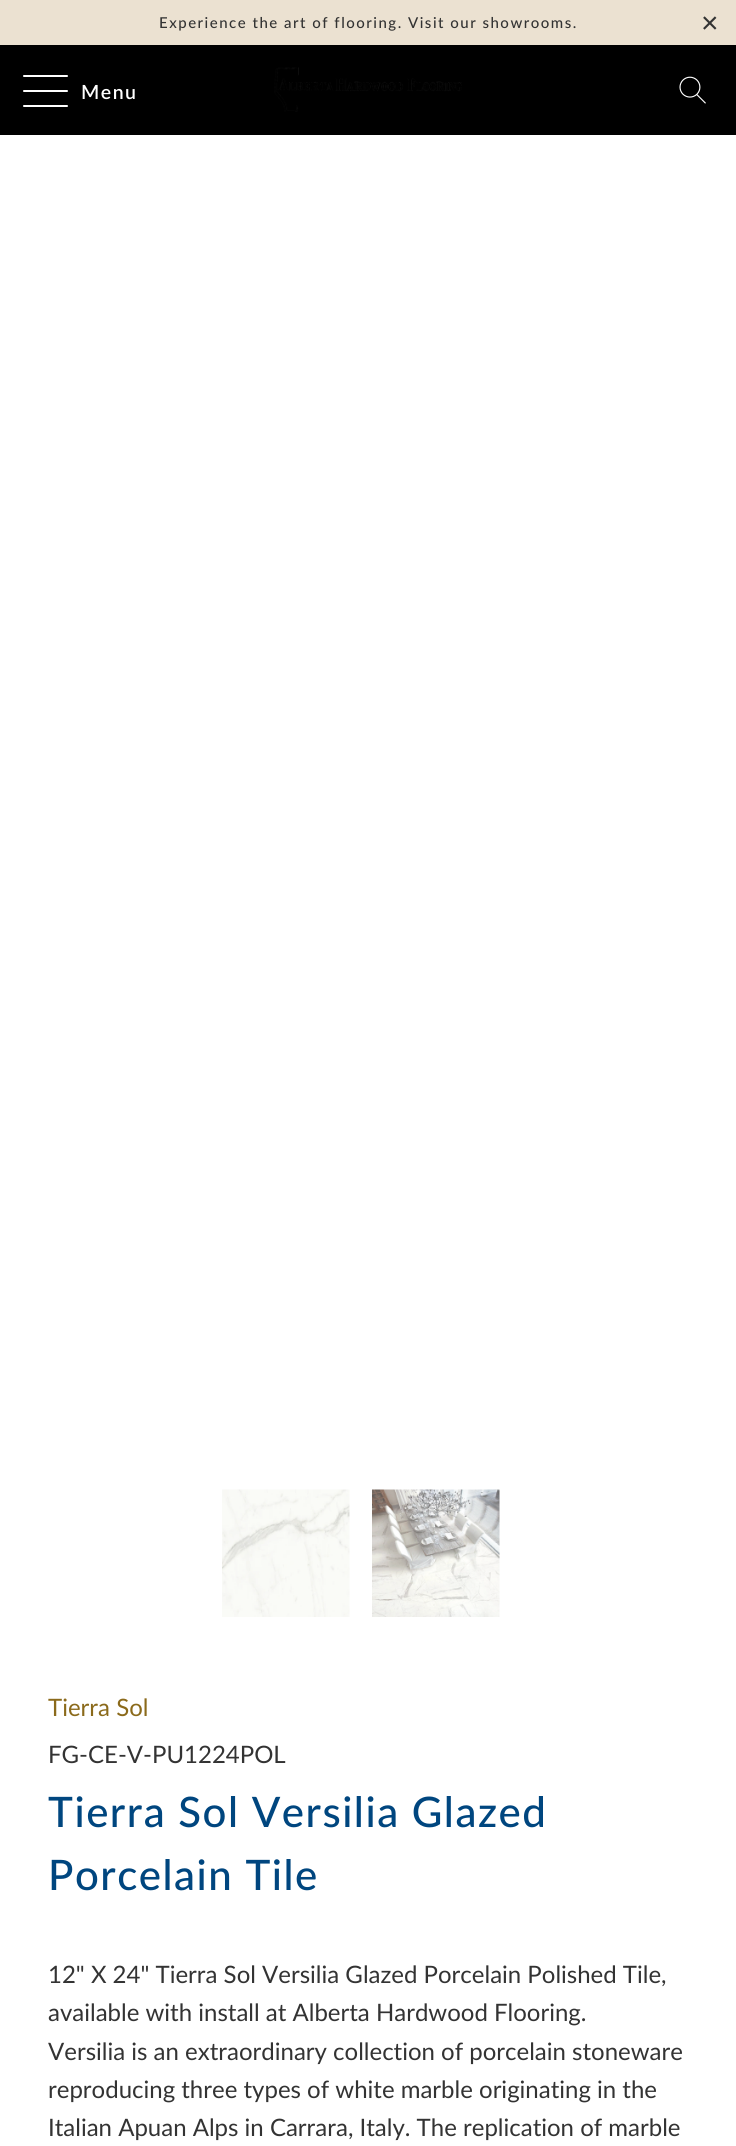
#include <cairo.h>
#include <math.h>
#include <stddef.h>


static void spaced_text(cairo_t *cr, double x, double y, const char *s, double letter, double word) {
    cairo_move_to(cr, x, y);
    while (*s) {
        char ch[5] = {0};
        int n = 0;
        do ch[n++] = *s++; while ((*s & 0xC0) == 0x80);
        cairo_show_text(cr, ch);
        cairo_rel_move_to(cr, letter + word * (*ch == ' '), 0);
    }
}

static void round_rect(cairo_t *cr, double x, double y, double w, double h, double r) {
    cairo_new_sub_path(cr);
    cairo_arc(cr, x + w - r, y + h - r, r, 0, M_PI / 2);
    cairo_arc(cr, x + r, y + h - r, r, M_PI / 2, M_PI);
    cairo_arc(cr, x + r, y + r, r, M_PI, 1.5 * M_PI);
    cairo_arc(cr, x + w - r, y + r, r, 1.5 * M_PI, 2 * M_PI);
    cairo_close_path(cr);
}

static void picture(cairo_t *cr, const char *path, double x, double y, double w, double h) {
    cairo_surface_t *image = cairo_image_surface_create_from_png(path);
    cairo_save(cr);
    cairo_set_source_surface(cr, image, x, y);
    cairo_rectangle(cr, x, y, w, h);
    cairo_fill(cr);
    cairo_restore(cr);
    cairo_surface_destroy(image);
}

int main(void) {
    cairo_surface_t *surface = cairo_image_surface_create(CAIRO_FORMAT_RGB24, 736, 2146);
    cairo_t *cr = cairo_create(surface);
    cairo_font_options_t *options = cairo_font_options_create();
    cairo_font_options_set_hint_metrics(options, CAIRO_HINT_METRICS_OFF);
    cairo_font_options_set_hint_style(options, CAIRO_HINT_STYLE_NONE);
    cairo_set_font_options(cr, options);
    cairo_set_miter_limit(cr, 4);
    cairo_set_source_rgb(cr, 1, 1, 1);
    cairo_paint(cr);
    cairo_set_source_rgb(cr, 0.918, 0.882, 0.82);
    cairo_rectangle(cr, 0, 0, 736, 45);
    cairo_fill(cr);
    cairo_select_font_face(cr, "Lato Medium", CAIRO_FONT_SLANT_NORMAL, CAIRO_FONT_WEIGHT_NORMAL);
    cairo_set_font_size(cr, 15);
    cairo_set_source_rgb(cr, 0.2, 0.2, 0.2);
    spaced_text(cr, 159, 28, "Experience the art of flooring. Visit our showrooms.", 1.5, 0);
    cairo_select_font_face(cr, "Liberation Sans", CAIRO_FONT_SLANT_NORMAL, CAIRO_FONT_WEIGHT_NORMAL);
    cairo_set_font_size(cr, 30);
    spaced_text(cr, 701, 33, "×", 1.5, 0);
    cairo_set_source_rgb(cr, 0, 0, 0);
    cairo_rectangle(cr, 0, 45, 736, 90);
    cairo_fill(cr);
    cairo_set_source_rgb(cr, 1, 1, 1);
    round_rect(cr, 23, 75, 45, 2, 1);
    cairo_fill(cr);
    round_rect(cr, 23, 90, 45, 2, 1);
    cairo_fill(cr);
    round_rect(cr, 23, 105, 45, 2, 1);
    cairo_fill(cr);
    cairo_select_font_face(cr, "Lato SemiBold", CAIRO_FONT_SLANT_NORMAL, CAIRO_FONT_WEIGHT_NORMAL);
    cairo_set_font_size(cr, 19.5);
    spaced_text(cr, 81, 99, "Menu", 1.5, 0);
    picture(cr, "img1.png", 274, 67, 188, 45);
    picture(cr, "img2.png", 679, 76, 27, 28);
    picture(cr, "img3.png", 222, 1489, 128, 128);
    picture(cr, "img4.png", 372, 1489, 128, 128);
    cairo_select_font_face(cr, "Lato", CAIRO_FONT_SLANT_NORMAL, CAIRO_FONT_WEIGHT_NORMAL);
    cairo_set_font_size(cr, 24);
    cairo_set_source_rgb(cr, 0.545, 0.416, 0.106);
    cairo_move_to(cr, 48, 1716);
    cairo_show_text(cr, "Tierra Sol");
    cairo_set_source_rgb(cr, 0.2, 0.2, 0.2);
    cairo_move_to(cr, 48, 1763);
    cairo_show_text(cr, "FG-CE-V-PU1224POL");
    cairo_select_font_face(cr, "Lato Medium", CAIRO_FONT_SLANT_NORMAL, CAIRO_FONT_WEIGHT_NORMAL);
    cairo_set_font_size(cr, 42);
    cairo_set_source_rgb(cr, 0, 0.275, 0.498);
    spaced_text(cr, 48, 1827, "Tierra Sol Versilia Glazed", 1.5, 0);
    spaced_text(cr, 48, 1890, "Porcelain Tile", 1.5, 0);
    cairo_select_font_face(cr, "Lato", CAIRO_FONT_SLANT_NORMAL, CAIRO_FONT_WEIGHT_NORMAL);
    cairo_set_font_size(cr, 24);
    cairo_set_source_rgb(cr, 0.2, 0.2, 0.2);
    cairo_move_to(cr, 48, 1983);
    cairo_show_text(cr, "12\" X 24\" Tierra Sol Versilia Glazed Porcelain Polished Tile,");
    cairo_move_to(cr, 48, 2021);
    cairo_show_text(cr, "available with install at Alberta Hardwood Flooring.");
    cairo_move_to(cr, 48, 2060);
    cairo_show_text(cr, "Versilia is an extraordinary collection of porcelain stoneware");
    cairo_move_to(cr, 48, 2098);
    cairo_show_text(cr, "reproducing three types of white marble originating in the");
    cairo_move_to(cr, 48, 2136);
    cairo_show_text(cr, "Italian Apuan Alps in Carrara, Italy. The replication of marble");
    cairo_surface_write_to_png(surface, "page.png");
    cairo_font_options_destroy(options);
    cairo_destroy(cr);
    cairo_surface_destroy(surface);
    return 0;
}
